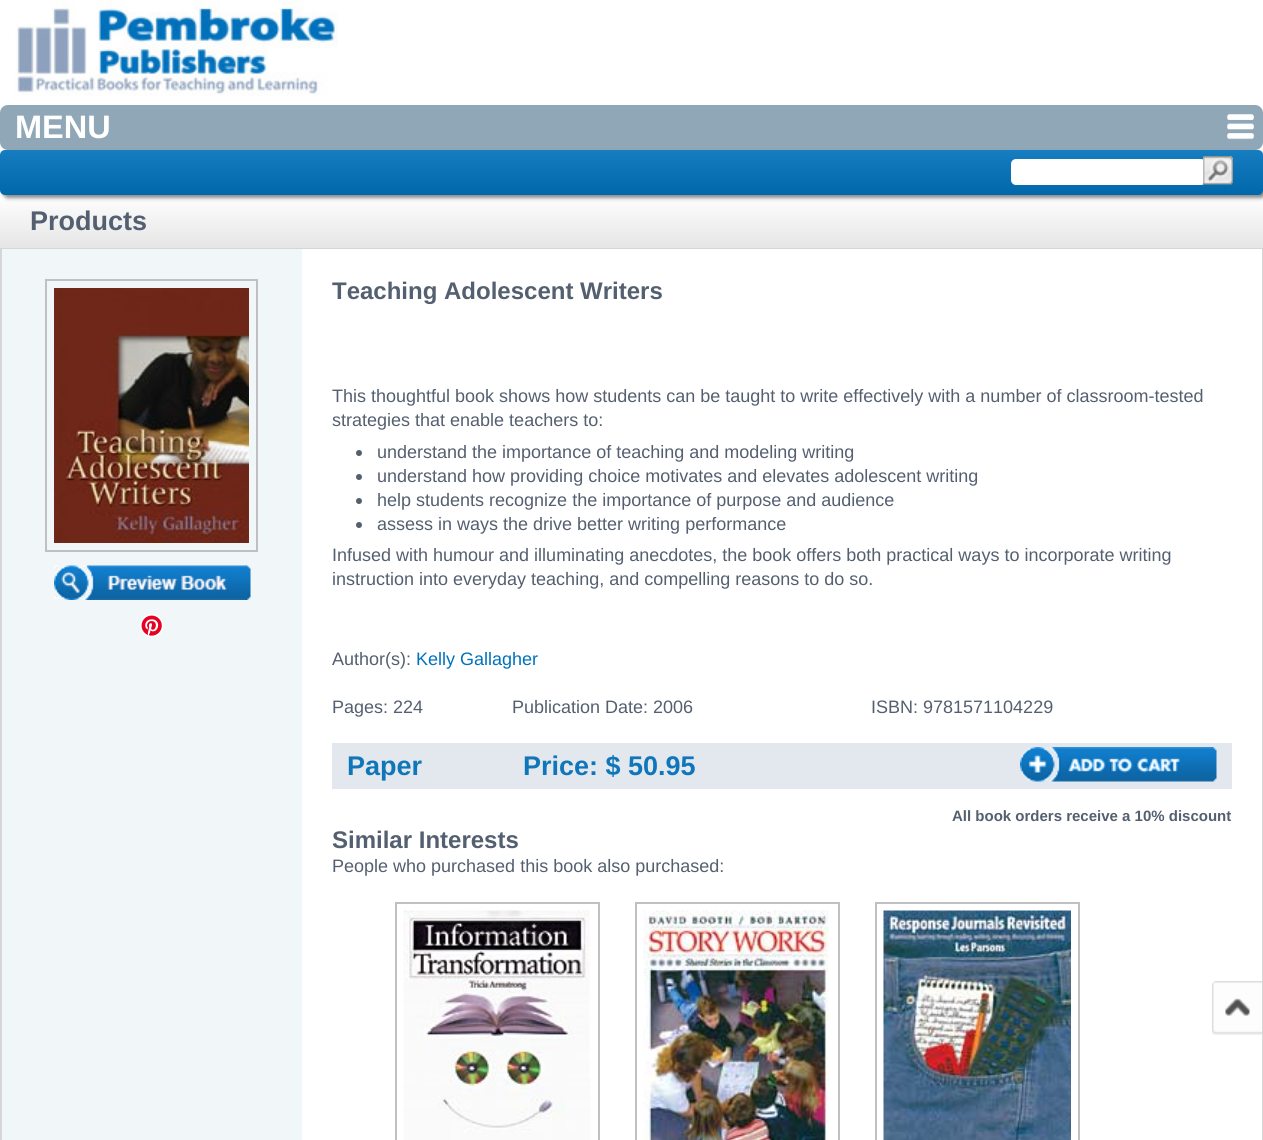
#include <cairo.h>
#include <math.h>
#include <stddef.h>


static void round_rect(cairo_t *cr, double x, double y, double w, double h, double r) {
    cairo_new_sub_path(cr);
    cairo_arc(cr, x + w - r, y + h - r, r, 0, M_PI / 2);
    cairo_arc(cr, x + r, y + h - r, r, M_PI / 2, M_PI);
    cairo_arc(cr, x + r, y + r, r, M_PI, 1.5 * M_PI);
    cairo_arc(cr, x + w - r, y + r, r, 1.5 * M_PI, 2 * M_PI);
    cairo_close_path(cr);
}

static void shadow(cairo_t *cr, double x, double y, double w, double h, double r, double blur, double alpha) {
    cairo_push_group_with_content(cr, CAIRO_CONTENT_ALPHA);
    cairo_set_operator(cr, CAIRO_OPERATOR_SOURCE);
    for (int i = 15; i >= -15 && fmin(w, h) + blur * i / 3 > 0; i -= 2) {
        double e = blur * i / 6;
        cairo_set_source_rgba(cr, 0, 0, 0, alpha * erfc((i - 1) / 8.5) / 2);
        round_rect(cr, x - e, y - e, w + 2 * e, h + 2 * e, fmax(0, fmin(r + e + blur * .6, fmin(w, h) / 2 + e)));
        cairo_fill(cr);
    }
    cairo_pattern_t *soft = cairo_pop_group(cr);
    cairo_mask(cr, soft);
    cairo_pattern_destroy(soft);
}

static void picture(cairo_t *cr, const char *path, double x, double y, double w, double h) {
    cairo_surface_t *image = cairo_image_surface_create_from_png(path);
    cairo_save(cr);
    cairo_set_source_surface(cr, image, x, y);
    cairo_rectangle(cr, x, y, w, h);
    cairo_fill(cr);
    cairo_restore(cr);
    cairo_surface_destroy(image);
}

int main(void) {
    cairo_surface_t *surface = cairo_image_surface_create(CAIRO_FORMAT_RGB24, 1263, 1140);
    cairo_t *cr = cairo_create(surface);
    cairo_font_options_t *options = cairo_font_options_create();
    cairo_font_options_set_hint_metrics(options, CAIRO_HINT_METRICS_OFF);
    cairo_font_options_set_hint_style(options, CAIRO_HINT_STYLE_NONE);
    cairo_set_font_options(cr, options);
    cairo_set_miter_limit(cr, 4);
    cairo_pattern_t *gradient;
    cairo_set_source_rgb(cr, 1, 1, 1);
    cairo_paint(cr);
    picture(cr, "img1.png", 0, 0, 1263, 195);
    picture(cr, "img2.png", 15, 0, 323, 96);
    cairo_set_source_rgb(cr, 0.561, 0.655, 0.714);
    round_rect(cr, 0, 105, 1263, 45, 8);
    cairo_fill(cr);
    picture(cr, "img3.png", 1227, 114, 27, 26);
    cairo_select_font_face(cr, "Liberation Sans", CAIRO_FONT_SLANT_NORMAL, CAIRO_FONT_WEIGHT_BOLD);
    cairo_set_font_size(cr, 32.5);
    cairo_set_source_rgb(cr, 1, 1, 1);
    cairo_move_to(cr, 15, 138);
    cairo_show_text(cr, "MENU");
    gradient = cairo_pattern_create_linear(632, 195, 632, 248);
    cairo_pattern_add_color_stop_rgba(gradient, 0, 1, 1, 1, 1);
    cairo_pattern_add_color_stop_rgba(gradient, 1, 0.898, 0.898, 0.898, 1);
    cairo_set_source(cr, gradient);
    cairo_pattern_destroy(gradient);
    cairo_rectangle(cr, 0, 200, 1263, 48);
    cairo_fill(cr);
    cairo_set_source_rgb(cr, 0.533, 0.533, 0.533);
    shadow(cr, 3, 153, 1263, 45, 5, 2, 1);
    gradient = cairo_pattern_create_linear(632, 150, 632, 195);
    cairo_pattern_add_color_stop_rgba(gradient, 0, 0.09, 0.49, 0.757, 1);
    cairo_pattern_add_color_stop_rgba(gradient, 1, 0, 0.404, 0.667, 1);
    cairo_set_source(cr, gradient);
    cairo_pattern_destroy(gradient);
    round_rect(cr, 0, 150, 1263, 45, 5);
    cairo_fill(cr);
    cairo_set_source_rgb(cr, 1, 1, 1);
    round_rect(cr, 1011, 159, 195, 26, 5);
    cairo_fill(cr);
    picture(cr, "img4.png", 1203, 156, 30, 29);
    cairo_set_font_size(cr, 27);
    cairo_set_source_rgb(cr, 0.329, 0.373, 0.439);
    cairo_move_to(cr, 30, 230);
    cairo_show_text(cr, "Products");
    cairo_rectangle(cr, 1, 249, 1261, 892);
    cairo_set_source_rgb(cr, 0.839, 0.839, 0.839);
    cairo_stroke(cr);
    cairo_set_source_rgb(cr, 0.945, 0.961, 0.973);
    cairo_rectangle(cr, 2, 249, 300, 891);
    cairo_fill(cr);
    cairo_rectangle(cr, 46, 280, 211, 271);
    cairo_set_source_rgb(cr, 0.753, 0.753, 0.753);
    cairo_stroke(cr);
    picture(cr, "img5.png", 54, 288, 195, 255);
    picture(cr, "img6.png", 54, 565, 197, 35);
    picture(cr, "img7.png", 140, 614, 24, 24);
    cairo_set_source_rgb(cr, 1, 1, 1);
    cairo_rectangle(cr, 302, 249, 960, 891);
    cairo_fill(cr);
    cairo_set_font_size(cr, 24);
    cairo_set_source_rgb(cr, 0.329, 0.373, 0.439);
    cairo_move_to(cr, 332, 299);
    cairo_show_text(cr, "Teaching Adolescent Writers");
    cairo_select_font_face(cr, "Liberation Sans", CAIRO_FONT_SLANT_NORMAL, CAIRO_FONT_WEIGHT_NORMAL);
    cairo_set_font_size(cr, 18);
    cairo_move_to(cr, 332, 402);
    cairo_show_text(cr, "This thoughtful book shows how students can be taught to write effectively with a number of classroom-tested");
    cairo_move_to(cr, 332, 426);
    cairo_show_text(cr, "strategies that enable teachers to:");
    cairo_new_path(cr);
    cairo_arc(cr, 359, 453, 3, 0, 2 * M_PI);
    cairo_fill(cr);
    cairo_move_to(cr, 377, 458);
    cairo_show_text(cr, "understand the importance of teaching and modeling writing");
    cairo_new_path(cr);
    cairo_arc(cr, 359, 477, 3, 0, 2 * M_PI);
    cairo_fill(cr);
    cairo_move_to(cr, 377, 482);
    cairo_show_text(cr, "understand how providing choice motivates and elevates adolescent writing");
    cairo_new_path(cr);
    cairo_arc(cr, 359, 501, 3, 0, 2 * M_PI);
    cairo_fill(cr);
    cairo_move_to(cr, 377, 506);
    cairo_show_text(cr, "help students recognize the importance of purpose and audience");
    cairo_new_path(cr);
    cairo_arc(cr, 359, 525, 3, 0, 2 * M_PI);
    cairo_fill(cr);
    cairo_move_to(cr, 377, 530);
    cairo_show_text(cr, "assess in ways the drive better writing performance");
    cairo_move_to(cr, 332, 561);
    cairo_show_text(cr, "Infused with humour and illuminating anecdotes, the book offers both practical ways to incorporate writing");
    cairo_move_to(cr, 332, 585);
    cairo_show_text(cr, "instruction into everyday teaching, and compelling reasons to do so.");
    cairo_move_to(cr, 332, 665);
    cairo_show_text(cr, "Author(s):");
    cairo_set_source_rgb(cr, 0, 0.443, 0.733);
    cairo_move_to(cr, 416, 665);
    cairo_show_text(cr, "Kelly Gallagher");
    cairo_set_source_rgb(cr, 0.329, 0.373, 0.439);
    cairo_move_to(cr, 332, 713);
    cairo_show_text(cr, "Pages: 224");
    cairo_move_to(cr, 512, 713);
    cairo_show_text(cr, "Publication Date: 2006");
    cairo_move_to(cr, 871, 713);
    cairo_show_text(cr, "ISBN: 9781571104229");
    cairo_set_source_rgb(cr, 0.89, 0.91, 0.933);
    cairo_rectangle(cr, 332, 743, 900, 46);
    cairo_fill(cr);
    cairo_select_font_face(cr, "Liberation Sans", CAIRO_FONT_SLANT_NORMAL, CAIRO_FONT_WEIGHT_BOLD);
    cairo_set_font_size(cr, 27);
    cairo_set_source_rgb(cr, 0.059, 0.463, 0.725);
    cairo_move_to(cr, 347, 775);
    cairo_show_text(cr, "Paper");
    cairo_move_to(cr, 523, 775);
    cairo_show_text(cr, "Price: $ 50.95");
    picture(cr, "img8.png", 1020, 747, 197, 35);
    cairo_set_font_size(cr, 15);
    cairo_set_source_rgb(cr, 0.329, 0.373, 0.439);
    cairo_move_to(cr, 952, 821);
    cairo_show_text(cr, "All book orders receive a 10% discount");
    cairo_set_font_size(cr, 24);
    cairo_move_to(cr, 332, 848);
    cairo_show_text(cr, "Similar Interests");
    cairo_select_font_face(cr, "Liberation Sans", CAIRO_FONT_SLANT_NORMAL, CAIRO_FONT_WEIGHT_NORMAL);
    cairo_set_font_size(cr, 18);
    cairo_move_to(cr, 332, 872);
    cairo_show_text(cr, "People who purchased this book also purchased:");
    cairo_rectangle(cr, 396, 903, 203, 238);
    cairo_set_source_rgb(cr, 0.753, 0.753, 0.753);
    cairo_stroke(cr);
    picture(cr, "img9.png", 403, 910, 188, 230);
    cairo_rectangle(cr, 636, 903, 203, 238);
    cairo_stroke(cr);
    picture(cr, "img10.png", 643, 910, 186, 230);
    cairo_rectangle(cr, 876, 903, 203, 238);
    cairo_stroke(cr);
    picture(cr, "img11.png", 883, 910, 188, 230);
    picture(cr, "img12.png", 1212, 981, 50, 54);
    cairo_surface_write_to_png(surface, "page.png");
    cairo_font_options_destroy(options);
    cairo_destroy(cr);
    cairo_surface_destroy(surface);
    return 0;
}
